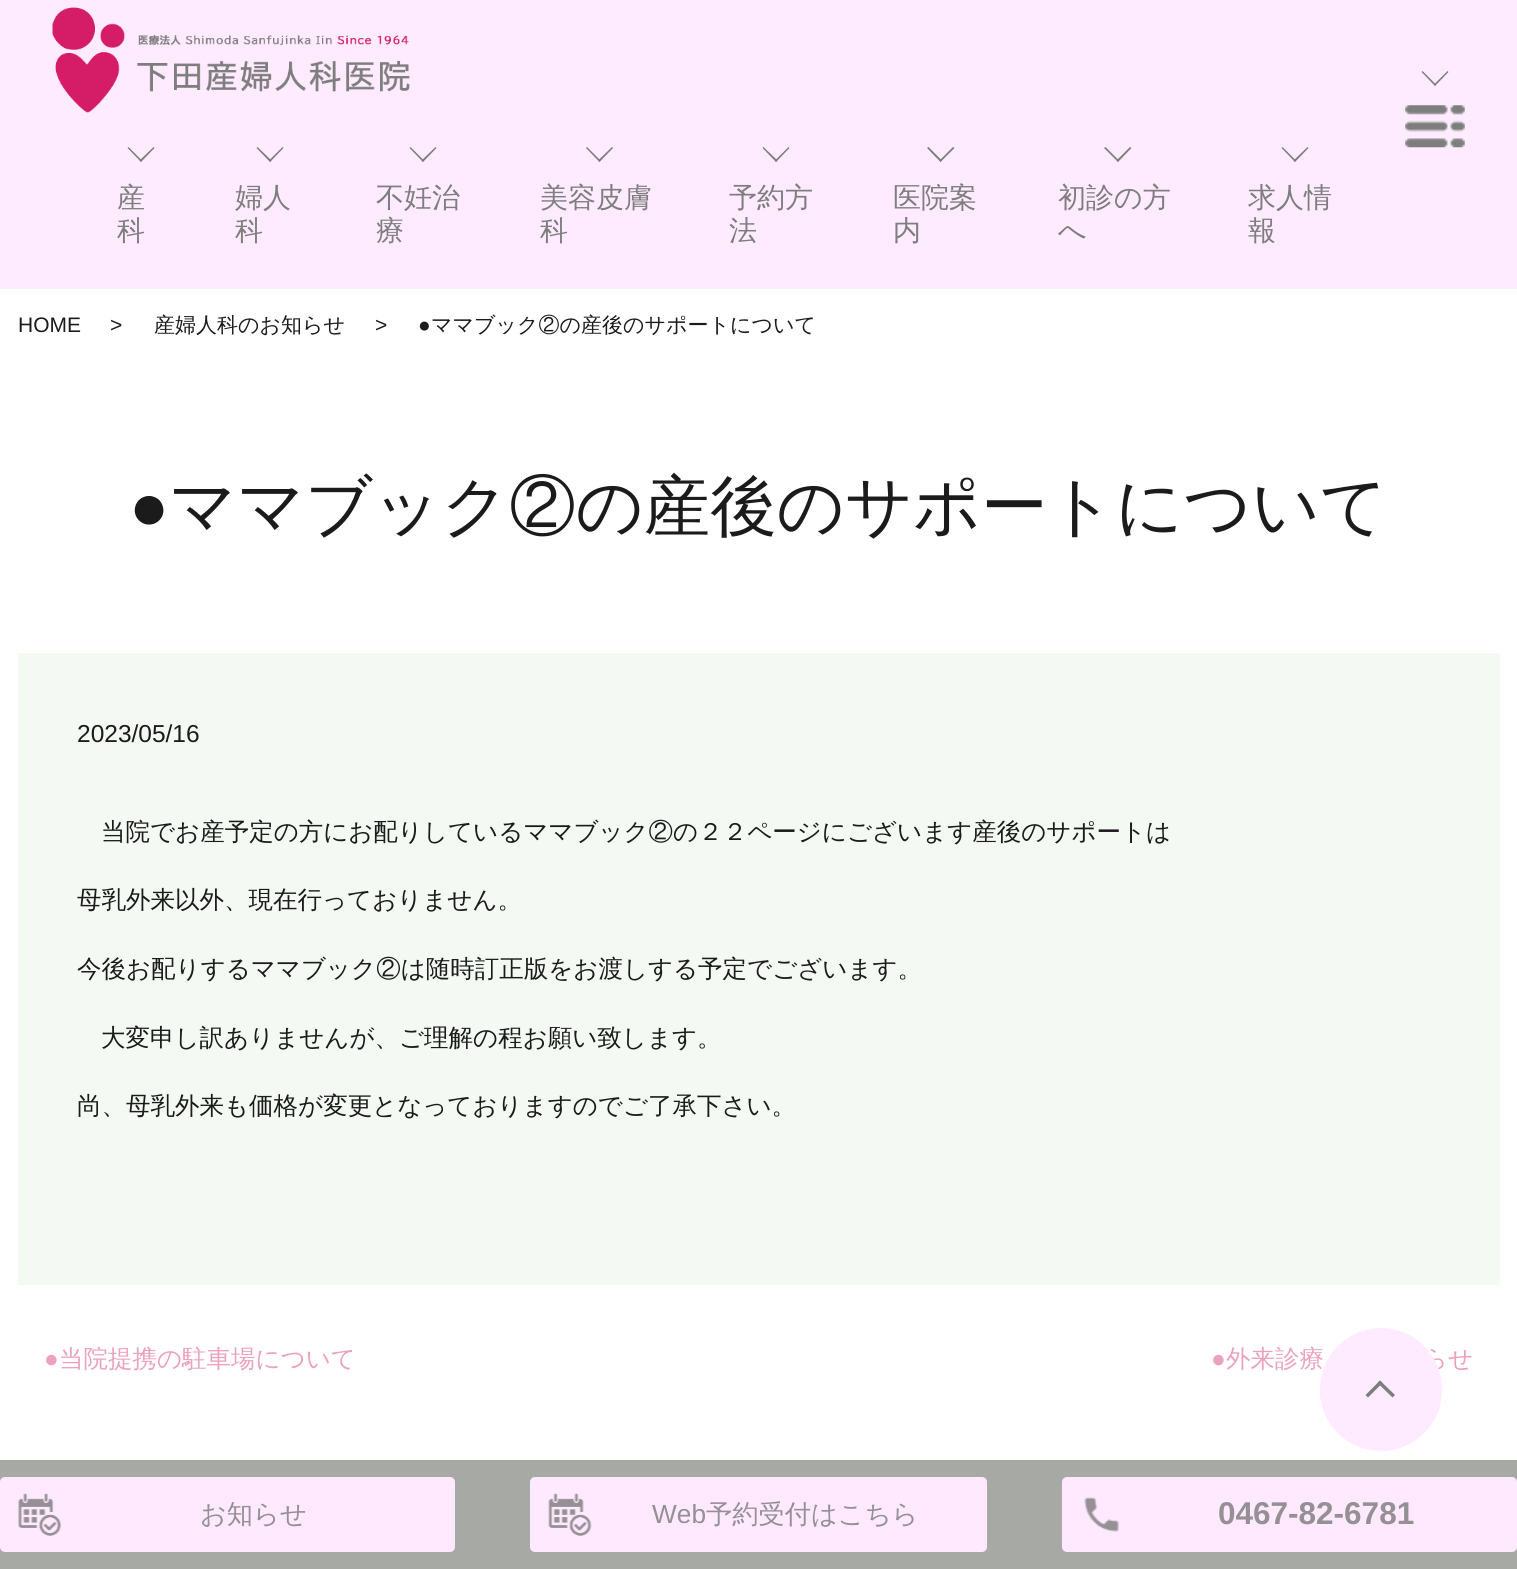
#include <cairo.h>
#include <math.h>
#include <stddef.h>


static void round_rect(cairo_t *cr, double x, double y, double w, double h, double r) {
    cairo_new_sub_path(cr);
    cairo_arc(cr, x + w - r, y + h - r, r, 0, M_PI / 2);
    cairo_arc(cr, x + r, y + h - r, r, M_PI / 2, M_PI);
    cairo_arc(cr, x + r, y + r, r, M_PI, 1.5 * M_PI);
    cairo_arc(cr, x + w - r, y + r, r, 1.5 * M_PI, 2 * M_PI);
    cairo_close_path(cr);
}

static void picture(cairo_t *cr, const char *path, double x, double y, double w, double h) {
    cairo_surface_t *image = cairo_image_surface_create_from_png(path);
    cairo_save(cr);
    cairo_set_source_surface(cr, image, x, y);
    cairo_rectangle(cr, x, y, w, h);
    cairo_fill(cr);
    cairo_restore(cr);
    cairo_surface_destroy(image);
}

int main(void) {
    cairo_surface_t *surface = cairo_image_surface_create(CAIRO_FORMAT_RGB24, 1517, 1569);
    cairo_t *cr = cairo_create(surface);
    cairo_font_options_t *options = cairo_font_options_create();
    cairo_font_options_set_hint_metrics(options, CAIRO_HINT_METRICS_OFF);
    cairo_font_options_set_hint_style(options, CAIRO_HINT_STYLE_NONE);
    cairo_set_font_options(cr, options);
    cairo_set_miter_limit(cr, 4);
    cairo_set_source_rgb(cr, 1, 1, 1);
    cairo_paint(cr);
    cairo_set_source_rgb(cr, 1, 0.918, 1);
    cairo_rectangle(cr, 0, 0, 1517, 289);
    cairo_fill(cr);
    cairo_set_source_rgb(cr, 0.494, 0.494, 0.494);
    cairo_new_path(cr);
    cairo_move_to(cr, 1447.5, 71);
    cairo_line_to(cr, 1448.5, 72);
    cairo_line_to(cr, 1435, 86);
    cairo_line_to(cr, 1434, 84.5);
    cairo_close_path(cr);
    cairo_fill(cr);
    cairo_new_path(cr);
    cairo_move_to(cr, 1422.5, 71);
    cairo_line_to(cr, 1436, 84.5);
    cairo_line_to(cr, 1435, 86);
    cairo_line_to(cr, 1421.5, 72);
    cairo_close_path(cr);
    cairo_fill(cr);
    picture(cr, "img1.png", 1405, 105, 60, 43);
    picture(cr, "img2.png", 52, 7, 358, 106);
    cairo_new_path(cr);
    cairo_move_to(cr, 153.5, 147);
    cairo_line_to(cr, 154.5, 148);
    cairo_line_to(cr, 141, 162);
    cairo_line_to(cr, 139.5, 160.5);
    cairo_close_path(cr);
    cairo_fill(cr);
    cairo_new_path(cr);
    cairo_move_to(cr, 128.5, 147);
    cairo_line_to(cr, 142, 160.5);
    cairo_line_to(cr, 141, 162);
    cairo_line_to(cr, 127.5, 148);
    cairo_close_path(cr);
    cairo_fill(cr);
    cairo_select_font_face(cr, "WenQuanYi Zen Hei Medium", CAIRO_FONT_SLANT_NORMAL, CAIRO_FONT_WEIGHT_NORMAL);
    cairo_set_font_size(cr, 28);
    cairo_move_to(cr, 117, 207);
    cairo_show_text(cr, "産");
    cairo_move_to(cr, 117, 240);
    cairo_show_text(cr, "科");
    cairo_new_path(cr);
    cairo_move_to(cr, 282.5, 147);
    cairo_line_to(cr, 283.5, 148);
    cairo_line_to(cr, 270, 162);
    cairo_line_to(cr, 269, 160.5);
    cairo_close_path(cr);
    cairo_fill(cr);
    cairo_new_path(cr);
    cairo_move_to(cr, 257.5, 147);
    cairo_line_to(cr, 271.5, 160.5);
    cairo_line_to(cr, 270, 162);
    cairo_line_to(cr, 256.5, 148);
    cairo_close_path(cr);
    cairo_fill(cr);
    cairo_move_to(cr, 235, 207);
    cairo_show_text(cr, "婦人");
    cairo_move_to(cr, 235, 240);
    cairo_show_text(cr, "科");
    cairo_new_path(cr);
    cairo_move_to(cr, 435.5, 147);
    cairo_line_to(cr, 436.5, 148);
    cairo_line_to(cr, 423, 162);
    cairo_line_to(cr, 421.5, 160.5);
    cairo_close_path(cr);
    cairo_fill(cr);
    cairo_new_path(cr);
    cairo_move_to(cr, 410.5, 147);
    cairo_line_to(cr, 424, 160.5);
    cairo_line_to(cr, 423, 162);
    cairo_line_to(cr, 409.5, 148);
    cairo_close_path(cr);
    cairo_fill(cr);
    cairo_move_to(cr, 376, 207);
    cairo_show_text(cr, "不妊治");
    cairo_move_to(cr, 376, 240);
    cairo_show_text(cr, "療");
    cairo_new_path(cr);
    cairo_move_to(cr, 612, 147);
    cairo_line_to(cr, 613, 148);
    cairo_line_to(cr, 599.5, 162);
    cairo_line_to(cr, 598, 160.5);
    cairo_close_path(cr);
    cairo_fill(cr);
    cairo_new_path(cr);
    cairo_move_to(cr, 587, 147);
    cairo_line_to(cr, 600.5, 160.5);
    cairo_line_to(cr, 599.5, 162);
    cairo_line_to(cr, 586, 148);
    cairo_close_path(cr);
    cairo_fill(cr);
    cairo_move_to(cr, 540, 207);
    cairo_show_text(cr, "美容皮膚");
    cairo_move_to(cr, 540, 240);
    cairo_show_text(cr, "科");
    cairo_new_path(cr);
    cairo_move_to(cr, 788.5, 147);
    cairo_line_to(cr, 789.5, 148);
    cairo_line_to(cr, 776, 162);
    cairo_line_to(cr, 775, 160.5);
    cairo_close_path(cr);
    cairo_fill(cr);
    cairo_new_path(cr);
    cairo_move_to(cr, 763.5, 147);
    cairo_line_to(cr, 777.5, 160.5);
    cairo_line_to(cr, 776, 162);
    cairo_line_to(cr, 762.5, 148);
    cairo_close_path(cr);
    cairo_fill(cr);
    cairo_move_to(cr, 729, 207);
    cairo_show_text(cr, "予約方");
    cairo_move_to(cr, 729, 240);
    cairo_show_text(cr, "法");
    cairo_new_path(cr);
    cairo_move_to(cr, 953, 147);
    cairo_line_to(cr, 954.5, 148);
    cairo_line_to(cr, 940.5, 162);
    cairo_line_to(cr, 939.5, 160.5);
    cairo_close_path(cr);
    cairo_fill(cr);
    cairo_new_path(cr);
    cairo_move_to(cr, 928.5, 147);
    cairo_line_to(cr, 942, 160.5);
    cairo_line_to(cr, 940.5, 162);
    cairo_line_to(cr, 927, 148);
    cairo_close_path(cr);
    cairo_fill(cr);
    cairo_move_to(cr, 893, 207);
    cairo_show_text(cr, "医院案");
    cairo_move_to(cr, 893, 240);
    cairo_show_text(cr, "内");
    cairo_new_path(cr);
    cairo_move_to(cr, 1130, 147);
    cairo_line_to(cr, 1131.5, 148);
    cairo_line_to(cr, 1118, 162);
    cairo_line_to(cr, 1116.5, 160.5);
    cairo_close_path(cr);
    cairo_fill(cr);
    cairo_new_path(cr);
    cairo_move_to(cr, 1105.5, 147);
    cairo_line_to(cr, 1119, 160.5);
    cairo_line_to(cr, 1118, 162);
    cairo_line_to(cr, 1104, 148);
    cairo_close_path(cr);
    cairo_fill(cr);
    cairo_move_to(cr, 1058, 207);
    cairo_show_text(cr, "初診の方");
    cairo_move_to(cr, 1058, 240);
    cairo_show_text(cr, "へ");
    cairo_new_path(cr);
    cairo_move_to(cr, 1307.5, 147);
    cairo_line_to(cr, 1308.5, 148);
    cairo_line_to(cr, 1295, 162);
    cairo_line_to(cr, 1293.5, 160.5);
    cairo_close_path(cr);
    cairo_fill(cr);
    cairo_new_path(cr);
    cairo_move_to(cr, 1282.5, 147);
    cairo_line_to(cr, 1296, 160.5);
    cairo_line_to(cr, 1295, 162);
    cairo_line_to(cr, 1281.5, 148);
    cairo_close_path(cr);
    cairo_fill(cr);
    cairo_move_to(cr, 1248, 207);
    cairo_show_text(cr, "求人情");
    cairo_move_to(cr, 1248, 240);
    cairo_show_text(cr, "報");
    cairo_select_font_face(cr, "Liberation Sans", CAIRO_FONT_SLANT_NORMAL, CAIRO_FONT_WEIGHT_NORMAL);
    cairo_set_font_size(cr, 21);
    cairo_set_source_rgb(cr, 0.106, 0.106, 0.106);
    cairo_move_to(cr, 18, 332);
    cairo_show_text(cr, "HOME");
    cairo_move_to(cr, 110, 332);
    cairo_show_text(cr, ">");
    cairo_select_font_face(cr, "WenQuanYi Zen Hei Medium", CAIRO_FONT_SLANT_NORMAL, CAIRO_FONT_WEIGHT_NORMAL);
    cairo_move_to(cr, 154, 332);
    cairo_show_text(cr, "産婦人科のお知らせ");
    cairo_select_font_face(cr, "Liberation Sans", CAIRO_FONT_SLANT_NORMAL, CAIRO_FONT_WEIGHT_NORMAL);
    cairo_move_to(cr, 375, 332);
    cairo_show_text(cr, ">");
    cairo_move_to(cr, 418, 332);
    cairo_show_text(cr, "●");
    cairo_select_font_face(cr, "WenQuanYi Zen Hei Medium", CAIRO_FONT_SLANT_NORMAL, CAIRO_FONT_WEIGHT_NORMAL);
    cairo_move_to(cr, 431, 332);
    cairo_show_text(cr, "ママブック②の産後のサポートについて");
    cairo_select_font_face(cr, "Liberation Sans", CAIRO_FONT_SLANT_NORMAL, CAIRO_FONT_WEIGHT_NORMAL);
    cairo_set_font_size(cr, 66.5);
    cairo_move_to(cr, 129, 529);
    cairo_show_text(cr, "●");
    cairo_select_font_face(cr, "WenQuanYi Zen Hei Medium", CAIRO_FONT_SLANT_NORMAL, CAIRO_FONT_WEIGHT_NORMAL);
    cairo_move_to(cr, 169, 529);
    cairo_show_text(cr, "ママブック②の産後のサポートについて");
    cairo_set_source_rgb(cr, 0.957, 0.976, 0.957);
    cairo_rectangle(cr, 18, 653, 1482, 632);
    cairo_fill(cr);
    cairo_select_font_face(cr, "Liberation Sans", CAIRO_FONT_SLANT_NORMAL, CAIRO_FONT_WEIGHT_NORMAL);
    cairo_set_font_size(cr, 24.5);
    cairo_set_source_rgb(cr, 0.106, 0.106, 0.106);
    cairo_move_to(cr, 77, 742);
    cairo_show_text(cr, "2023/05/16");
    cairo_select_font_face(cr, "WenQuanYi Zen Hei Medium", CAIRO_FONT_SLANT_NORMAL, CAIRO_FONT_WEIGHT_NORMAL);
    cairo_move_to(cr, 101, 840);
    cairo_show_text(cr, "当院でお産予定の方にお配りしているママブック②の２２ページにございます産後のサポートは");
    cairo_move_to(cr, 77, 908);
    cairo_show_text(cr, "母乳外来以外、現在行っておりません。");
    cairo_move_to(cr, 77, 977);
    cairo_show_text(cr, "今後お配りするママブック②は随時訂正版をお渡しする予定でございます。");
    cairo_move_to(cr, 101, 1046);
    cairo_show_text(cr, "大変申し訳ありませんが、ご理解の程お願い致します。");
    cairo_move_to(cr, 77, 1114);
    cairo_show_text(cr, "尚、母乳外来も価格が変更となっておりますのでご了承下さい。");
    cairo_select_font_face(cr, "Liberation Sans", CAIRO_FONT_SLANT_NORMAL, CAIRO_FONT_WEIGHT_NORMAL);
    cairo_set_source_rgb(cr, 0.925, 0.631, 0.749);
    cairo_move_to(cr, 44, 1367);
    cairo_show_text(cr, "●");
    cairo_select_font_face(cr, "WenQuanYi Zen Hei Medium", CAIRO_FONT_SLANT_NORMAL, CAIRO_FONT_WEIGHT_NORMAL);
    cairo_move_to(cr, 59, 1367);
    cairo_show_text(cr, "当院提携の駐車場について");
    cairo_select_font_face(cr, "Liberation Sans", CAIRO_FONT_SLANT_NORMAL, CAIRO_FONT_WEIGHT_NORMAL);
    cairo_move_to(cr, 1211, 1367);
    cairo_show_text(cr, "●");
    cairo_select_font_face(cr, "WenQuanYi Zen Hei Medium", CAIRO_FONT_SLANT_NORMAL, CAIRO_FONT_WEIGHT_NORMAL);
    cairo_move_to(cr, 1226, 1367);
    cairo_show_text(cr, "外来診療");
    cairo_move_to(cr, 1423, 1367);
    cairo_show_text(cr, "らせ");
    cairo_set_source_rgb(cr, 1, 0.918, 1);
    round_rect(cr, 1320, 1328, 122, 123, 61);
    cairo_fill(cr);
    cairo_set_source_rgb(cr, 0.494, 0.494, 0.494);
    cairo_new_path(cr);
    cairo_move_to(cr, 1380, 1380.5);
    cairo_line_to(cr, 1395, 1395);
    cairo_line_to(cr, 1392.5, 1397.5);
    cairo_line_to(cr, 1377.5, 1383);
    cairo_close_path(cr);
    cairo_fill(cr);
    cairo_new_path(cr);
    cairo_move_to(cr, 1380, 1380.5);
    cairo_line_to(cr, 1382.5, 1383);
    cairo_line_to(cr, 1368, 1397.5);
    cairo_line_to(cr, 1365.5, 1395);
    cairo_close_path(cr);
    cairo_fill(cr);
    cairo_set_source_rgb(cr, 0.655, 0.663, 0.647);
    cairo_rectangle(cr, 0, 1460, 1517, 109);
    cairo_fill(cr);
    cairo_set_source_rgb(cr, 1, 0.914, 1);
    round_rect(cr, 0, 1477, 455, 75, 5);
    cairo_fill(cr);
    picture(cr, "img3.png", 18, 1493, 43, 43);
    cairo_set_font_size(cr, 26.25);
    cairo_set_source_rgb(cr, 0.58, 0.565, 0.58);
    cairo_move_to(cr, 200, 1523);
    cairo_show_text(cr, "お知らせ");
    cairo_set_source_rgb(cr, 1, 0.914, 1);
    round_rect(cr, 530, 1477, 457, 75, 5);
    cairo_fill(cr);
    picture(cr, "img4.png", 548, 1493, 44, 43);
    cairo_select_font_face(cr, "Liberation Sans", CAIRO_FONT_SLANT_NORMAL, CAIRO_FONT_WEIGHT_NORMAL);
    cairo_set_source_rgb(cr, 0.58, 0.565, 0.58);
    cairo_move_to(cr, 652, 1523);
    cairo_show_text(cr, "Web");
    cairo_select_font_face(cr, "WenQuanYi Zen Hei Medium", CAIRO_FONT_SLANT_NORMAL, CAIRO_FONT_WEIGHT_NORMAL);
    cairo_move_to(cr, 706, 1523);
    cairo_show_text(cr, "予約受付はこちら");
    cairo_set_source_rgb(cr, 1, 0.914, 1);
    round_rect(cr, 1062, 1477, 455, 75, 5);
    cairo_fill(cr);
    picture(cr, "img5.png", 1084, 1497, 36, 35);
    cairo_select_font_face(cr, "Liberation Sans", CAIRO_FONT_SLANT_NORMAL, CAIRO_FONT_WEIGHT_BOLD);
    cairo_set_font_size(cr, 31.5);
    cairo_set_source_rgb(cr, 0.58, 0.565, 0.58);
    cairo_move_to(cr, 1218, 1524);
    cairo_show_text(cr, "0467-82-6781");
    cairo_surface_write_to_png(surface, "page.png");
    cairo_font_options_destroy(options);
    cairo_destroy(cr);
    cairo_surface_destroy(surface);
    return 0;
}
